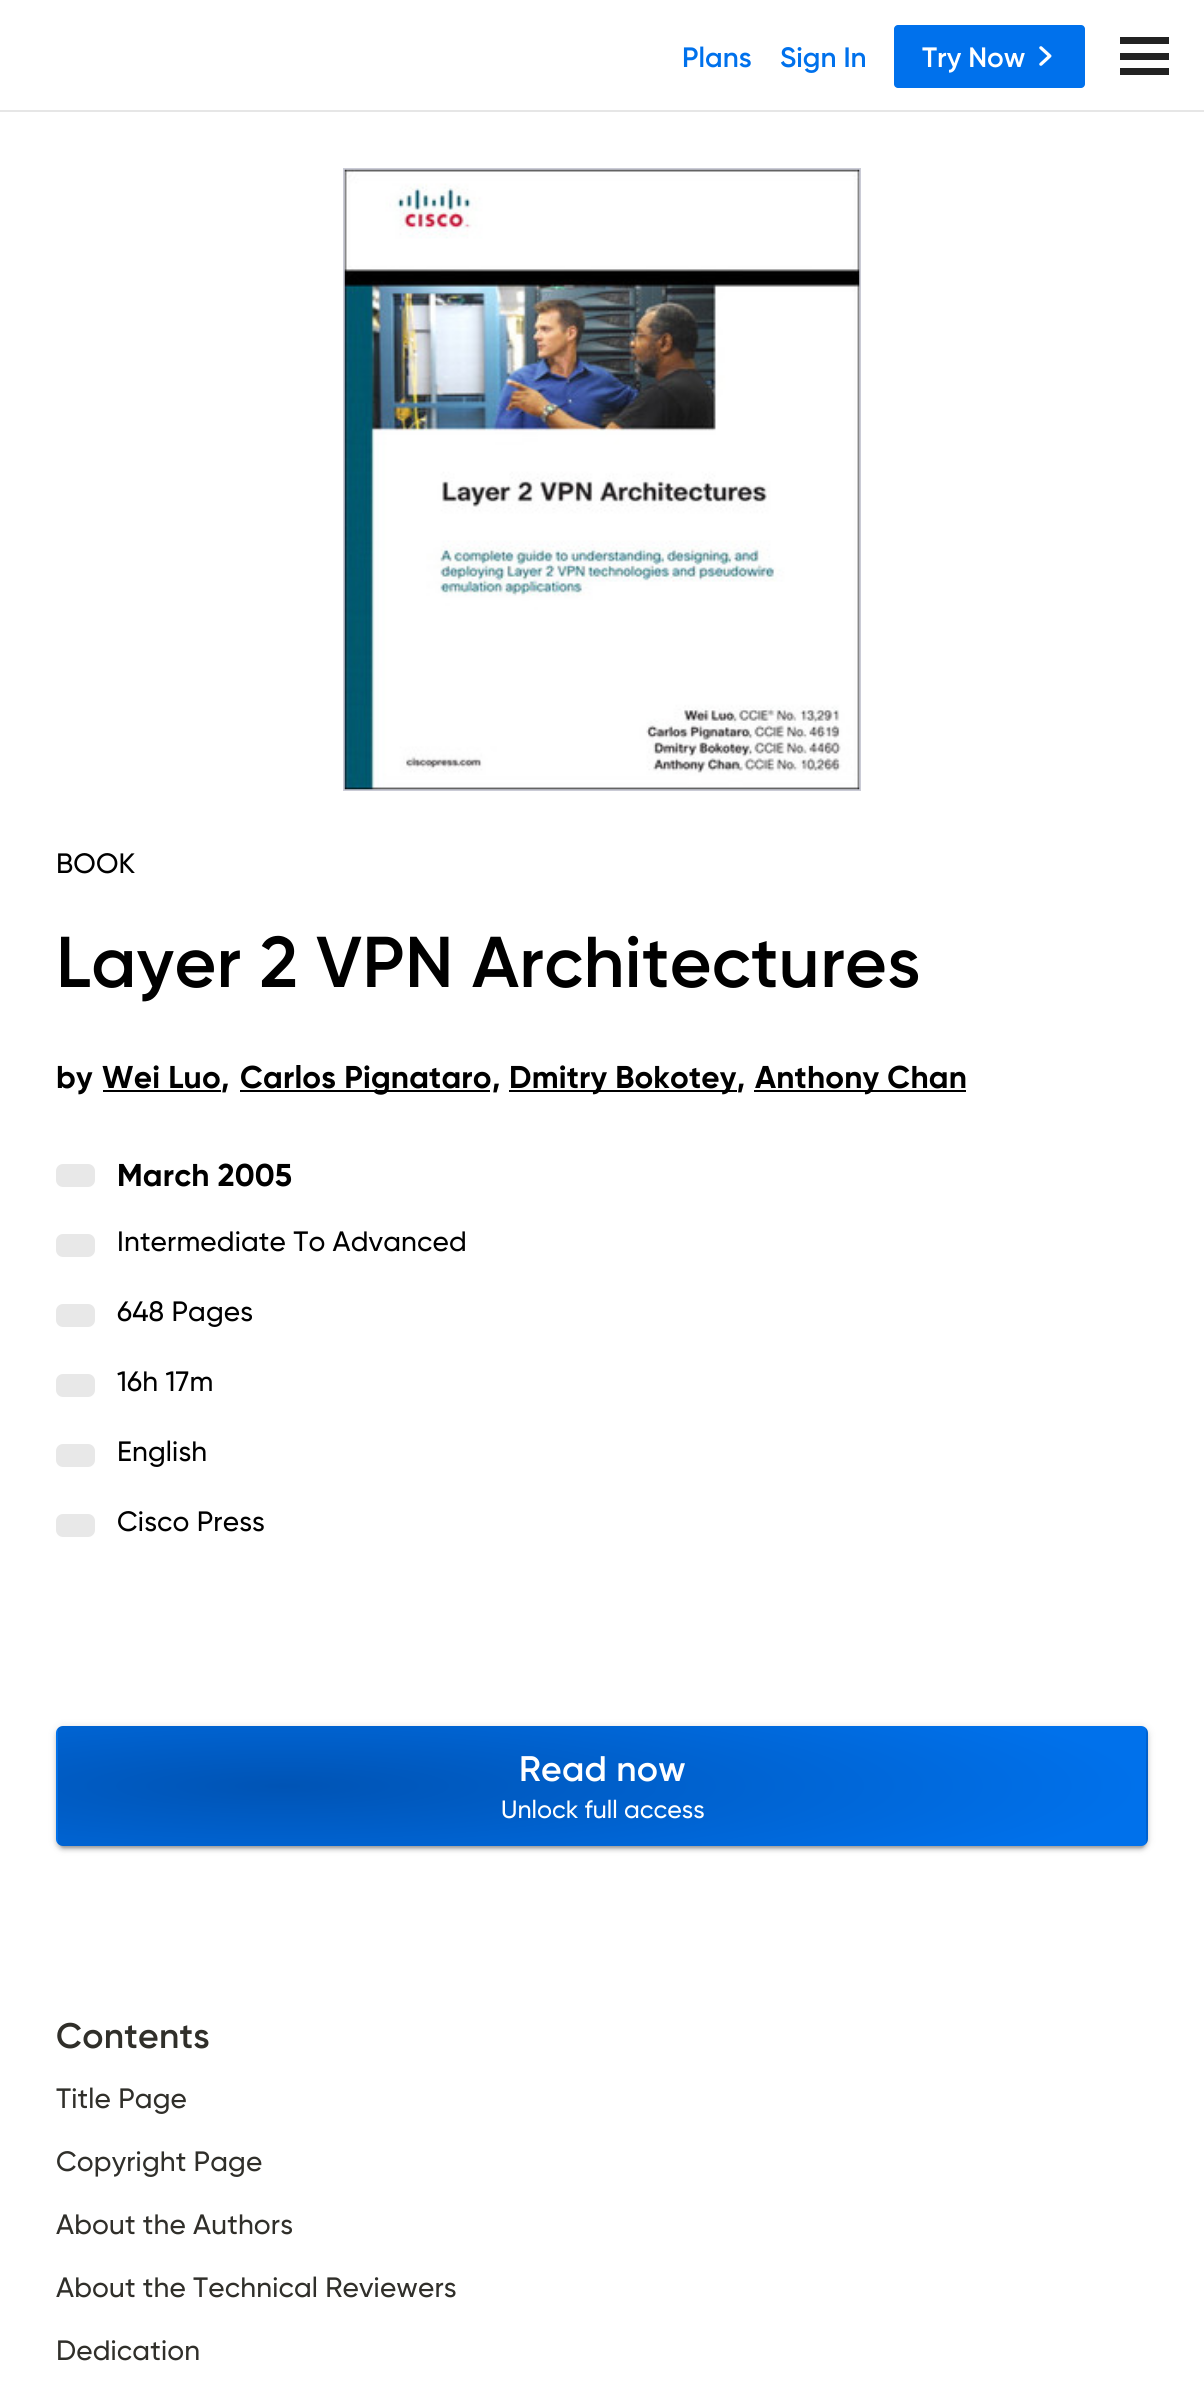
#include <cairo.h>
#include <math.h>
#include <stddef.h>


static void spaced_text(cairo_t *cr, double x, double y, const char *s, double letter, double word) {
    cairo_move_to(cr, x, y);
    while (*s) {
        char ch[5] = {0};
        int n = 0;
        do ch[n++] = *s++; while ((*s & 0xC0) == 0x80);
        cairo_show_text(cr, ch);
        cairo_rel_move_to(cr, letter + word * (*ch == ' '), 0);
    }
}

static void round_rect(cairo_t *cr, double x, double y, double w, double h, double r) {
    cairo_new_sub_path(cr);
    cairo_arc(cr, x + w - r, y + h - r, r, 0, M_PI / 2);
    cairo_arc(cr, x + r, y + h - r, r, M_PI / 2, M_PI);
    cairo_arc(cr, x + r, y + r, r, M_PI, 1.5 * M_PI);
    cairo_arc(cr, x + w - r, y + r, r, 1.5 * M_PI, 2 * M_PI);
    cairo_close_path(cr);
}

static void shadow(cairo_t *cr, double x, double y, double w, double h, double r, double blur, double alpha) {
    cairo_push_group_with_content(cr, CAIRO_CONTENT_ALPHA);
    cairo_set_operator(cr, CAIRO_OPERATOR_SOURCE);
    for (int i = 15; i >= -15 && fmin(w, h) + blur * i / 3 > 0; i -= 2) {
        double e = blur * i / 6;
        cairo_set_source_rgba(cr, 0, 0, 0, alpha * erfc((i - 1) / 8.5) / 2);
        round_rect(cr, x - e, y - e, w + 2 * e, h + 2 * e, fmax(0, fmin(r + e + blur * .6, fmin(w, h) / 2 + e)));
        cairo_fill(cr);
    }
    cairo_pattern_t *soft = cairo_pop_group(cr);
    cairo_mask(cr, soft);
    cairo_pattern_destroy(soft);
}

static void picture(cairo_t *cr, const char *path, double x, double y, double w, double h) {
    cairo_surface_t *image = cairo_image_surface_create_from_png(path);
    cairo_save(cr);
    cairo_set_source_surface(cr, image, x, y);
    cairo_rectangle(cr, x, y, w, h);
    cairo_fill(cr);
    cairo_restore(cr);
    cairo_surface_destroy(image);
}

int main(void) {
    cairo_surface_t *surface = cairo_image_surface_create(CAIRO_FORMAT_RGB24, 1204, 2381);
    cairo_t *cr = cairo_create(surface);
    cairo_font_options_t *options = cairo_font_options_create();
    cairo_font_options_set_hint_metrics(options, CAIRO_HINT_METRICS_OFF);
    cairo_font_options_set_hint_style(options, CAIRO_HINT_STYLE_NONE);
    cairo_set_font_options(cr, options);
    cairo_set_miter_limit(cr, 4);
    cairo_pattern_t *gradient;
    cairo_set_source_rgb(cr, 1, 1, 1);
    cairo_paint(cr);
    cairo_set_source_rgb(cr, 0.902, 0.902, 0.902);
    cairo_rectangle(cr, 0, 110, 1204, 2);
    cairo_fill(cr);
    cairo_select_font_face(cr, "Gilroy SemiBold", CAIRO_FONT_SLANT_NORMAL, CAIRO_FONT_WEIGHT_NORMAL);
    cairo_set_font_size(cr, 28);
    cairo_set_source_rgb(cr, 0, 0.443, 0.922);
    cairo_move_to(cr, 682, 67);
    cairo_show_text(cr, "Plans");
    cairo_move_to(cr, 780, 67);
    cairo_show_text(cr, "Sign In");
    round_rect(cr, 894, 25, 191, 63, 4);
    cairo_fill(cr);
    cairo_set_source_rgb(cr, 1, 1, 1);
    cairo_move_to(cr, 922, 67);
    cairo_show_text(cr, "Try Now");
    picture(cr, "img1.png", 1039, 46, 13, 20);
    cairo_set_source_rgb(cr, 0.133, 0.133, 0.133);
    cairo_rectangle(cr, 1120, 53, 49, 7);
    cairo_fill(cr);
    cairo_rectangle(cr, 1120, 37, 49, 7);
    cairo_fill(cr);
    cairo_rectangle(cr, 1120, 68, 49, 7);
    cairo_fill(cr);
    cairo_set_source_rgb(cr, 0.792, 0.796, 0.839);
    cairo_rectangle(cr, 343, 168, 518, 623);
    cairo_fill(cr);
    picture(cr, "img2.png", 344, 169, 516, 621);
    cairo_select_font_face(cr, "Gilroy Medium", CAIRO_FONT_SLANT_NORMAL, CAIRO_FONT_WEIGHT_NORMAL);
    cairo_set_source_rgb(cr, 0, 0, 0);
    spaced_text(cr, 56, 873, "BOOK", 0.15, 0);
    cairo_select_font_face(cr, "Gilroy SemiBold", CAIRO_FONT_SLANT_NORMAL, CAIRO_FONT_WEIGHT_NORMAL);
    cairo_set_font_size(cr, 71.8);
    spaced_text(cr, 56, 987, "Layer 2 VPN Architectures", 0.35, 0);
    cairo_select_font_face(cr, "Gilroy", CAIRO_FONT_SLANT_NORMAL, CAIRO_FONT_WEIGHT_BOLD);
    cairo_set_font_size(cr, 31.5);
    spaced_text(cr, 56, 1088, "by", 0.2, 0);
    cairo_rectangle(cr, 103, 1090, 118, 2);
    cairo_fill(cr);
    spaced_text(cr, 102, 1088, "Wei Luo,", 0.2, 0);
    cairo_rectangle(cr, 240, 1090, 250, 2);
    cairo_fill(cr);
    spaced_text(cr, 240, 1088, "Carlos Pignataro,", 0.2, 0);
    cairo_rectangle(cr, 509, 1090, 228, 2);
    cairo_fill(cr);
    spaced_text(cr, 509, 1088, "Dmitry Bokotey,", 0.2, 0);
    cairo_rectangle(cr, 754, 1090, 212, 2);
    cairo_fill(cr);
    spaced_text(cr, 755, 1088, "Anthony Chan", 0.2, 0);
    cairo_set_source_rgb(cr, 0.91, 0.91, 0.91);
    round_rect(cr, 56, 1164, 39, 23, 7);
    cairo_fill(cr);
    cairo_set_source_rgb(cr, 0, 0, 0);
    spaced_text(cr, 117, 1186, "March 2005", 0.2, 0);
    cairo_set_source_rgb(cr, 0.91, 0.91, 0.91);
    round_rect(cr, 56, 1234, 39, 23, 7);
    cairo_fill(cr);
    cairo_select_font_face(cr, "Gilroy Medium", CAIRO_FONT_SLANT_NORMAL, CAIRO_FONT_WEIGHT_NORMAL);
    cairo_set_font_size(cr, 28);
    cairo_set_source_rgb(cr, 0, 0, 0);
    spaced_text(cr, 117, 1251, "Intermediate To Advanced", 0.15, 0);
    cairo_set_source_rgb(cr, 0.91, 0.91, 0.91);
    round_rect(cr, 56, 1304, 39, 23, 7);
    cairo_fill(cr);
    cairo_set_source_rgb(cr, 0, 0, 0);
    spaced_text(cr, 117, 1321, "648 Pages", 0.15, 0);
    cairo_set_source_rgb(cr, 0.91, 0.91, 0.91);
    round_rect(cr, 56, 1374, 39, 23, 7);
    cairo_fill(cr);
    cairo_set_source_rgb(cr, 0, 0, 0);
    spaced_text(cr, 117, 1391, "16h 17m", 0.15, 0);
    cairo_set_source_rgb(cr, 0.91, 0.91, 0.91);
    round_rect(cr, 56, 1444, 39, 23, 7);
    cairo_fill(cr);
    cairo_set_source_rgb(cr, 0, 0, 0);
    spaced_text(cr, 117, 1461, "English", 0.15, 0);
    cairo_set_source_rgb(cr, 0.91, 0.91, 0.91);
    round_rect(cr, 56, 1514, 39, 23, 7);
    cairo_fill(cr);
    cairo_set_source_rgb(cr, 0, 0, 0);
    spaced_text(cr, 117, 1531, "Cisco Press", 0.15, 0);
    cairo_set_source_rgb(cr, 0, 0, 0);
    shadow(cr, 56, 1727, 1092, 121, 7, 4.5, 0.12);
    shadow(cr, 56, 1729, 1092, 121, 7, 2, 0.14);
    shadow(cr, 60, 1734, 1085, 114, 4, 1, 0.2);
    cairo_save(cr);
    round_rect(cr, 56, 1726, 1092, 120, 7);
    cairo_clip(cr);
    gradient = cairo_pattern_create_radial(0, 0, 0, 0, 0, 1);
    cairo_pattern_set_matrix(gradient, &(cairo_matrix_t){1.0 / 864, 0, 0, 1.0 / 123, -1.0 * 282 / 864, -1.0 * 1669 / 123});
    cairo_pattern_add_color_stop_rgba(gradient, 0, 0, 0.329, 0.71, 1);
    cairo_pattern_add_color_stop_rgba(gradient, 1, 0, 0.443, 0.922, 1);
    cairo_set_source(cr, gradient);
    cairo_pattern_destroy(gradient);
    cairo_rectangle(cr, 58, 1726, 1088, 1);
    cairo_fill(cr);
    gradient = cairo_pattern_create_radial(0, 0, 0, 0, 0, 1);
    cairo_pattern_set_matrix(gradient, &(cairo_matrix_t){1.0 / 864, 0, 0, 1.0 / 123, -1.0 * -806 / 864, -1.0 * 1786 / 123});
    cairo_pattern_add_color_stop_rgba(gradient, 0, 0, 0.329, 0.71, 1);
    cairo_pattern_add_color_stop_rgba(gradient, 1, 0, 0.443, 0.922, 1);
    cairo_set_source(cr, gradient);
    cairo_pattern_destroy(gradient);
    cairo_rectangle(cr, 56, 1727, 2, 118);
    cairo_fill(cr);
    gradient = cairo_pattern_create_radial(0, 0, 0, 0, 0, 1);
    cairo_pattern_set_matrix(gradient, &(cairo_matrix_t){1.0 / 864, 0, 0, 1.0 / 123, -1.0 * 282 / 864, -1.0 * 1786 / 123});
    cairo_pattern_add_color_stop_rgba(gradient, 0, 0, 0.329, 0.71, 1);
    cairo_pattern_add_color_stop_rgba(gradient, 1, 0, 0.443, 0.922, 1);
    cairo_set_source(cr, gradient);
    cairo_pattern_destroy(gradient);
    cairo_rectangle(cr, 58, 1727, 1088, 118);
    cairo_fill(cr);
    gradient = cairo_pattern_create_radial(0, 0, 0, 0, 0, 1);
    cairo_pattern_set_matrix(gradient, &(cairo_matrix_t){1.0 / 864, 0, 0, 1.0 / 123, -1.0 * 1371 / 864, -1.0 * 1786 / 123});
    cairo_pattern_add_color_stop_rgba(gradient, 0, 0, 0.329, 0.71, 1);
    cairo_pattern_add_color_stop_rgba(gradient, 1, 0, 0.443, 0.922, 1);
    cairo_set_source(cr, gradient);
    cairo_pattern_destroy(gradient);
    cairo_rectangle(cr, 1146, 1727, 2, 118);
    cairo_fill(cr);
    gradient = cairo_pattern_create_radial(0, 0, 0, 0, 0, 1);
    cairo_pattern_set_matrix(gradient, &(cairo_matrix_t){1.0 / 864, 0, 0, 1.0 / 123, -1.0 * 282 / 864, -1.0 * 1903 / 123});
    cairo_pattern_add_color_stop_rgba(gradient, 0, 0, 0.329, 0.71, 1);
    cairo_pattern_add_color_stop_rgba(gradient, 1, 0, 0.443, 0.922, 1);
    cairo_set_source(cr, gradient);
    cairo_pattern_destroy(gradient);
    cairo_rectangle(cr, 58, 1845, 1088, 1);
    cairo_fill(cr);
    cairo_restore(cr);
    cairo_select_font_face(cr, "Gilroy SemiBold", CAIRO_FONT_SLANT_NORMAL, CAIRO_FONT_WEIGHT_NORMAL);
    cairo_set_font_size(cr, 35.5);
    cairo_set_source_rgb(cr, 1, 1, 1);
    spaced_text(cr, 519, 1781, "Read now", 0.25, 0);
    cairo_select_font_face(cr, "Gilroy Medium", CAIRO_FONT_SLANT_NORMAL, CAIRO_FONT_WEIGHT_NORMAL);
    cairo_set_font_size(cr, 25);
    cairo_move_to(cr, 501, 1818);
    cairo_show_text(cr, "Unlock full access");
    cairo_select_font_face(cr, "Gilroy SemiBold", CAIRO_FONT_SLANT_NORMAL, CAIRO_FONT_WEIGHT_NORMAL);
    cairo_set_font_size(cr, 35.5);
    cairo_set_source_rgb(cr, 0.188, 0.184, 0.165);
    spaced_text(cr, 56, 2048, "Contents", 0.25, 0);
    cairo_select_font_face(cr, "Gilroy Medium", CAIRO_FONT_SLANT_NORMAL, CAIRO_FONT_WEIGHT_NORMAL);
    cairo_set_font_size(cr, 28);
    spaced_text(cr, 56, 2108, "Title Page", 0.15, 0);
    spaced_text(cr, 56, 2171, "Copyright Page", 0.15, 0);
    spaced_text(cr, 56, 2234, "About the Authors", 0.15, 0);
    spaced_text(cr, 56, 2297, "About the Technical Reviewers", 0.15, 0);
    spaced_text(cr, 56, 2360, "Dedication", 0.15, 0);
    cairo_surface_write_to_png(surface, "page.png");
    cairo_font_options_destroy(options);
    cairo_destroy(cr);
    cairo_surface_destroy(surface);
    return 0;
}
